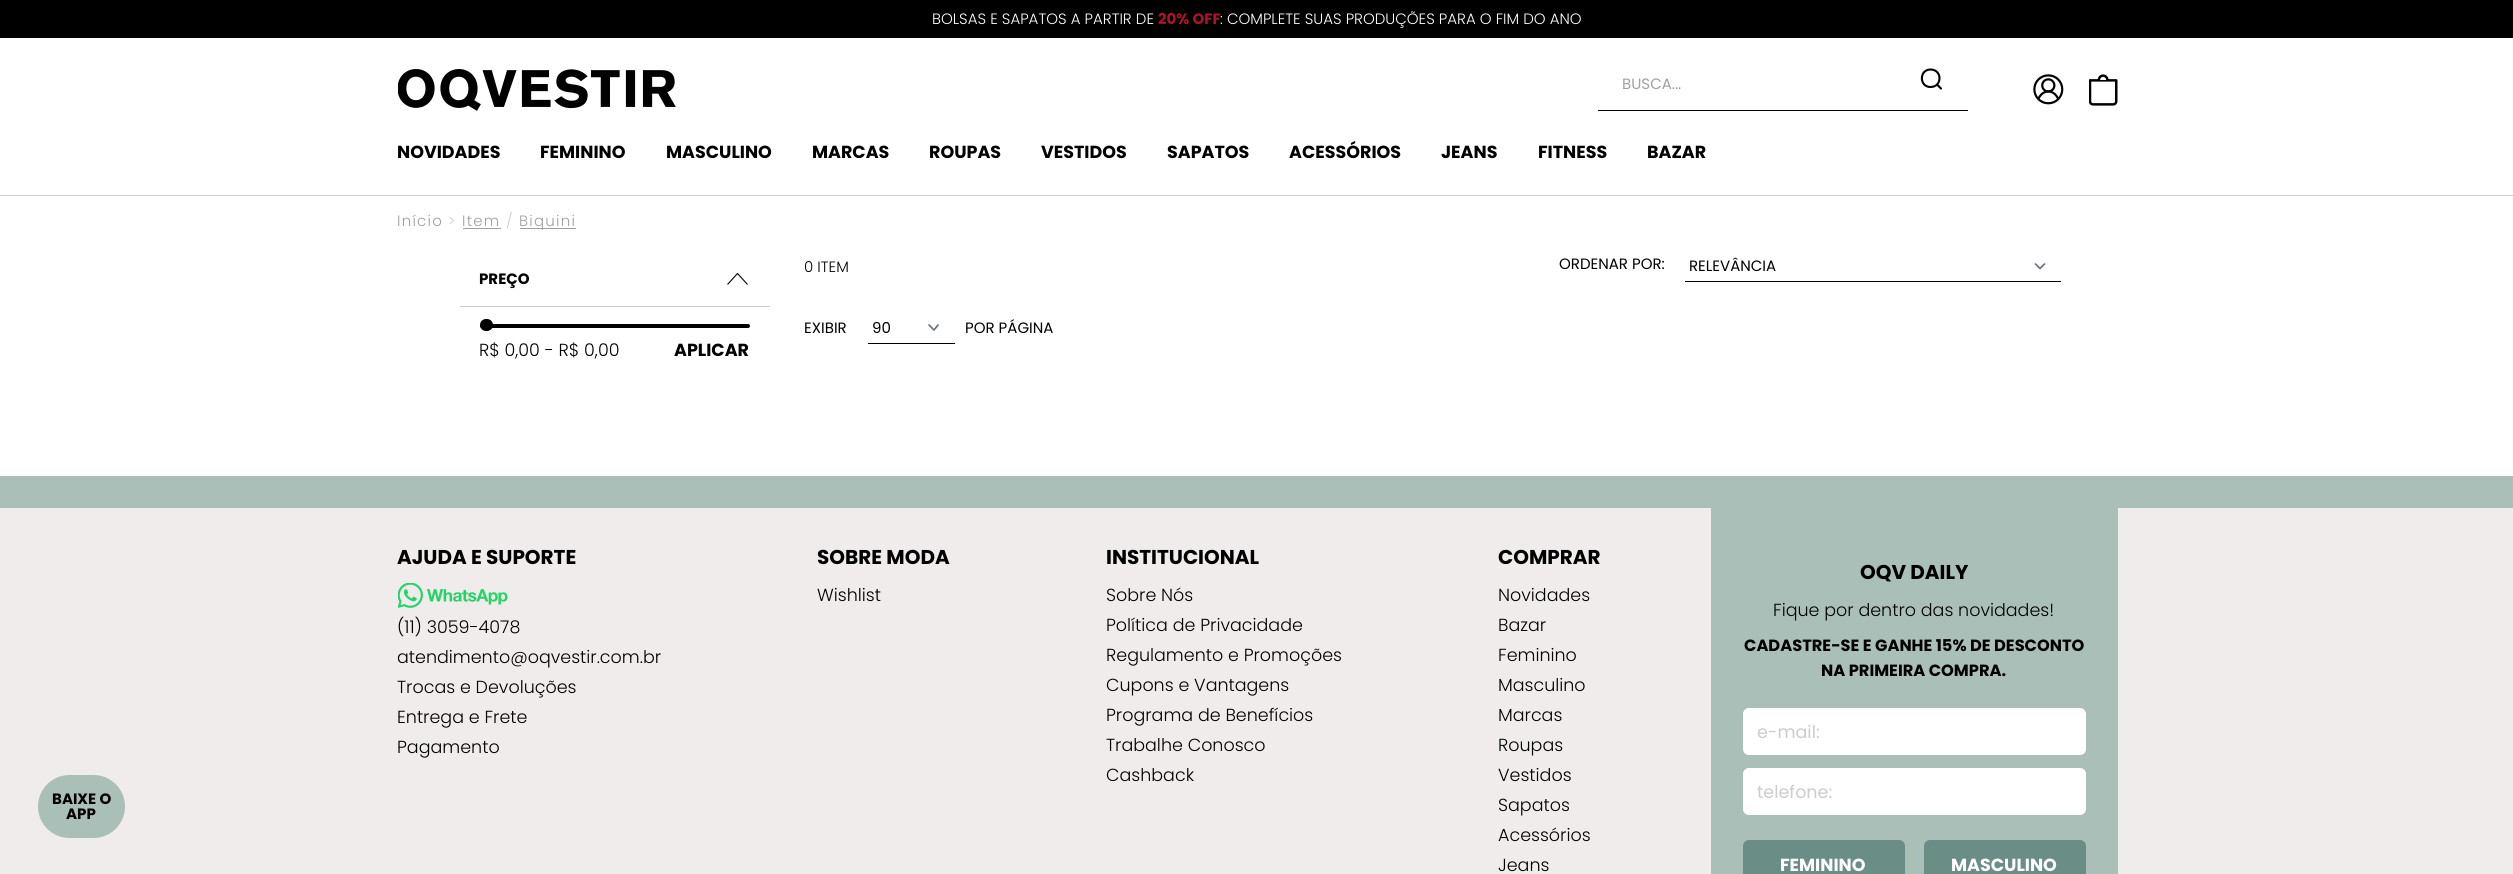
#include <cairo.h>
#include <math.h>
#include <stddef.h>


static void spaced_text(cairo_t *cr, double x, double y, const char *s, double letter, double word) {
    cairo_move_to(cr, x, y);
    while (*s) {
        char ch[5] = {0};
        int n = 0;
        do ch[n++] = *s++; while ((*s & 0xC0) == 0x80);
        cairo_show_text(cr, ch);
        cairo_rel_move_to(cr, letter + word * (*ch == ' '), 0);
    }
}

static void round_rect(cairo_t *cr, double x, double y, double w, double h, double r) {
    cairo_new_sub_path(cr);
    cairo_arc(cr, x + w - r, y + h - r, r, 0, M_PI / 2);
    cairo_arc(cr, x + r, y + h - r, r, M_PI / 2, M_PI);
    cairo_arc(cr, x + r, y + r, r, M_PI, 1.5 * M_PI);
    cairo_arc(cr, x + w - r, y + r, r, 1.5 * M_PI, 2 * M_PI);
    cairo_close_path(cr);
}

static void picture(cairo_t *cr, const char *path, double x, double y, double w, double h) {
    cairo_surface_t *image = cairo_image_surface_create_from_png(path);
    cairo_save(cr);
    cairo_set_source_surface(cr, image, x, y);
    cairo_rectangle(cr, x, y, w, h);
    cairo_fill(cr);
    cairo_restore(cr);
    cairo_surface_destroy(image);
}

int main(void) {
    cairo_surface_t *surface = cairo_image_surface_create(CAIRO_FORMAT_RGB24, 2513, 874);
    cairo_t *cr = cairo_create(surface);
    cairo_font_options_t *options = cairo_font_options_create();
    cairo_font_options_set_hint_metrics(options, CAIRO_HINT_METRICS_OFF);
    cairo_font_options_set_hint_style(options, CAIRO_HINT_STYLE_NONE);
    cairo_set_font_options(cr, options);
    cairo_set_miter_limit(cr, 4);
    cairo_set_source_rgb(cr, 1, 1, 1);
    cairo_paint(cr);
    cairo_set_source_rgb(cr, 0.8, 0.8, 0.8);
    cairo_rectangle(cr, 0, 195, 2513, 1);
    cairo_fill(cr);
    cairo_set_source_rgb(cr, 0, 0, 0);
    cairo_rectangle(cr, 0, 0, 2513, 38);
    cairo_fill(cr);
    cairo_select_font_face(cr, "Poppins Light", CAIRO_FONT_SLANT_NORMAL, CAIRO_FONT_WEIGHT_NORMAL);
    cairo_set_font_size(cr, 15);
    cairo_set_source_rgb(cr, 1, 1, 1);
    cairo_move_to(cr, 932, 24);
    cairo_show_text(cr, "BOLSAS E SAPATOS A PARTIR DE");
    cairo_select_font_face(cr, "Poppins", CAIRO_FONT_SLANT_NORMAL, CAIRO_FONT_WEIGHT_BOLD);
    cairo_set_source_rgb(cr, 0.682, 0.082, 0.153);
    cairo_move_to(cr, 1158, 24);
    cairo_show_text(cr, "20% OFF");
    cairo_select_font_face(cr, "Poppins Light", CAIRO_FONT_SLANT_NORMAL, CAIRO_FONT_WEIGHT_NORMAL);
    cairo_set_source_rgb(cr, 1, 1, 1);
    cairo_move_to(cr, 1220, 24);
    cairo_show_text(cr, ": COMPLETE SUAS PRODUÇÕES PARA O FIM DO ANO");
    picture(cr, "img1.png", 398, 69, 278, 42);
    cairo_set_source_rgb(cr, 0, 0, 0);
    cairo_rectangle(cr, 1598, 110, 370, 1);
    cairo_fill(cr);
    cairo_select_font_face(cr, "Poppins", CAIRO_FONT_SLANT_NORMAL, CAIRO_FONT_WEIGHT_NORMAL);
    cairo_set_source_rgb(cr, 0.627, 0.627, 0.627);
    cairo_move_to(cr, 1622, 89);
    cairo_show_text(cr, "BUSCA...");
    cairo_new_path(cr);
    cairo_move_to(cr, 1930.5, 87);
    cairo_curve_to(cr, 1942.5, 87, 1942.5, 69.5, 1930.5, 69.5);
    cairo_curve_to(cr, 1919, 69.5, 1919, 87, 1930.5, 87);
    cairo_close_path(cr);
    cairo_set_source_rgb(cr, 0, 0, 0);
    cairo_set_line_width(cr, 2.1);
    cairo_stroke(cr);
    cairo_new_path(cr);
    cairo_move_to(cr, 1941, 88.5);
    cairo_line_to(cr, 1937.5, 85);
    cairo_set_line_cap(cr, CAIRO_LINE_CAP_ROUND);
    cairo_set_line_join(cr, CAIRO_LINE_JOIN_ROUND);
    cairo_stroke(cr);
    picture(cr, "img2.png", 2033, 74, 31, 31);
    picture(cr, "img3.png", 2089, 74, 29, 32);
    cairo_select_font_face(cr, "Poppins", CAIRO_FONT_SLANT_NORMAL, CAIRO_FONT_WEIGHT_BOLD);
    cairo_set_font_size(cr, 17.5);
    cairo_move_to(cr, 397, 158);
    cairo_show_text(cr, "NOVIDADES");
    cairo_move_to(cr, 540, 158);
    cairo_show_text(cr, "FEMININO");
    cairo_move_to(cr, 666, 158);
    cairo_show_text(cr, "MASCULINO");
    cairo_move_to(cr, 812, 158);
    cairo_show_text(cr, "MARCAS");
    cairo_move_to(cr, 929, 158);
    cairo_show_text(cr, "ROUPAS");
    cairo_move_to(cr, 1041, 158);
    cairo_show_text(cr, "VESTIDOS");
    cairo_move_to(cr, 1167, 158);
    cairo_show_text(cr, "SAPATOS");
    cairo_move_to(cr, 1289, 158);
    cairo_show_text(cr, "ACESSÓRIOS");
    cairo_move_to(cr, 1441, 158);
    cairo_show_text(cr, "JEANS");
    cairo_move_to(cr, 1538, 158);
    cairo_show_text(cr, "FITNESS");
    cairo_move_to(cr, 1647, 158);
    cairo_show_text(cr, "BAZAR");
    cairo_set_source_rgb(cr, 0.937, 0.925, 0.918);
    cairo_rectangle(cr, 0, 508, 2513, 366);
    cairo_fill(cr);
    cairo_set_source_rgb(cr, 0.667, 0.749, 0.722);
    round_rect(cr, 38, 775, 87, 63, 31.5);
    cairo_fill(cr);
    cairo_set_font_size(cr, 15);
    cairo_set_source_rgb(cr, 0, 0, 0);
    cairo_move_to(cr, 52, 804);
    cairo_show_text(cr, "BAIXE O");
    cairo_move_to(cr, 66, 819);
    cairo_show_text(cr, "APP");
    cairo_select_font_face(cr, "Poppins Light", CAIRO_FONT_SLANT_NORMAL, CAIRO_FONT_WEIGHT_NORMAL);
    cairo_set_source_rgb(cr, 0.627, 0.627, 0.627);
    spaced_text(cr, 397, 226, "Início", 1.25, 0);
    cairo_set_source_rgb(cr, 0.8, 0.8, 0.8);
    spaced_text(cr, 448, 226, ">", 1.25, 0);
    cairo_set_source_rgb(cr, 0.627, 0.627, 0.627);
    spaced_text(cr, 462, 226, "Item", 1.25, 0);
    cairo_rectangle(cr, 463, 228, 38, 1);
    cairo_fill(cr);
    cairo_set_source_rgb(cr, 0.8, 0.8, 0.8);
    spaced_text(cr, 506, 226, "/", 1.25, 0);
    cairo_set_source_rgb(cr, 0.627, 0.627, 0.627);
    cairo_rectangle(cr, 520, 228, 56, 1);
    cairo_fill(cr);
    spaced_text(cr, 519, 226, "Biquini", 1.25, 0);
    cairo_set_source_rgb(cr, 0.8, 0.8, 0.8);
    cairo_rectangle(cr, 460, 306, 310, 1);
    cairo_fill(cr);
    cairo_select_font_face(cr, "Poppins", CAIRO_FONT_SLANT_NORMAL, CAIRO_FONT_WEIGHT_BOLD);
    cairo_set_source_rgb(cr, 0, 0, 0);
    cairo_move_to(cr, 479, 284);
    cairo_show_text(cr, "PREÇO");
    cairo_new_path(cr);
    cairo_move_to(cr, 747.5, 284.5);
    cairo_line_to(cr, 737.5, 273.5);
    cairo_line_to(cr, 727.5, 284.5);
    cairo_set_line_width(cr, 1.1);
    cairo_set_line_cap(cr, CAIRO_LINE_CAP_BUTT);
    cairo_stroke(cr);
    round_rect(cr, 480, 324, 270, 4, 2);
    cairo_fill(cr);
    round_rect(cr, 480, 319, 13, 12, 6);
    cairo_fill(cr);
    cairo_select_font_face(cr, "Poppins Light", CAIRO_FONT_SLANT_NORMAL, CAIRO_FONT_WEIGHT_NORMAL);
    cairo_set_font_size(cr, 17.5);
    cairo_move_to(cr, 479, 356);
    cairo_show_text(cr, "R$ 0,00 - R$ 0,00");
    cairo_select_font_face(cr, "Poppins", CAIRO_FONT_SLANT_NORMAL, CAIRO_FONT_WEIGHT_BOLD);
    cairo_move_to(cr, 674, 356);
    cairo_show_text(cr, "APLICAR");
    cairo_select_font_face(cr, "Poppins Light", CAIRO_FONT_SLANT_NORMAL, CAIRO_FONT_WEIGHT_NORMAL);
    cairo_set_font_size(cr, 15);
    cairo_move_to(cr, 804, 272);
    cairo_show_text(cr, "0 ITEM");
    cairo_select_font_face(cr, "Poppins", CAIRO_FONT_SLANT_NORMAL, CAIRO_FONT_WEIGHT_NORMAL);
    cairo_move_to(cr, 1559, 269);
    cairo_show_text(cr, "ORDENAR POR:");
    cairo_new_path(cr);
    cairo_move_to(cr, 2035.5, 264);
    cairo_line_to(cr, 2040, 268.5);
    cairo_line_to(cr, 2044.5, 264);
    cairo_set_source_rgb(cr, 0.42, 0.447, 0.502);
    cairo_set_line_width(cr, 1.7);
    cairo_set_line_cap(cr, CAIRO_LINE_CAP_ROUND);
    cairo_stroke(cr);
    cairo_set_source_rgb(cr, 0, 0, 0);
    cairo_rectangle(cr, 1685, 281, 376, 1);
    cairo_fill(cr);
    cairo_move_to(cr, 1689, 271);
    cairo_show_text(cr, "RELEVÂNCIA");
    cairo_move_to(cr, 804, 333);
    cairo_show_text(cr, "EXIBIR");
    cairo_new_path(cr);
    cairo_move_to(cr, 929, 325);
    cairo_line_to(cr, 934, 330);
    cairo_line_to(cr, 938, 325);
    cairo_set_source_rgb(cr, 0.42, 0.447, 0.502);
    cairo_stroke(cr);
    cairo_set_source_rgb(cr, 0, 0, 0);
    cairo_rectangle(cr, 868, 343, 87, 1);
    cairo_fill(cr);
    cairo_move_to(cr, 872, 333);
    cairo_show_text(cr, "90");
    cairo_move_to(cr, 965, 333);
    cairo_show_text(cr, "POR PÁGINA");
    cairo_set_source_rgb(cr, 0.667, 0.749, 0.722);
    cairo_rectangle(cr, 0, 476, 2513, 32);
    cairo_fill(cr);
    cairo_select_font_face(cr, "Poppins", CAIRO_FONT_SLANT_NORMAL, CAIRO_FONT_WEIGHT_BOLD);
    cairo_set_font_size(cr, 20);
    cairo_set_source_rgb(cr, 0, 0, 0);
    cairo_move_to(cr, 397, 564);
    cairo_show_text(cr, "AJUDA E SUPORTE");
    picture(cr, "img4.png", 398, 583, 110, 25);
    cairo_select_font_face(cr, "Poppins Light", CAIRO_FONT_SLANT_NORMAL, CAIRO_FONT_WEIGHT_NORMAL);
    cairo_set_font_size(cr, 17.5);
    cairo_move_to(cr, 397, 633);
    cairo_show_text(cr, "(11) 3059-4078");
    cairo_move_to(cr, 397, 663);
    cairo_show_text(cr, "atendimento@oqvestir.com.br");
    cairo_move_to(cr, 397, 693);
    cairo_show_text(cr, "Trocas e Devoluções");
    cairo_move_to(cr, 397, 723);
    cairo_show_text(cr, "Entrega e Frete");
    cairo_move_to(cr, 397, 753);
    cairo_show_text(cr, "Pagamento");
    cairo_select_font_face(cr, "Poppins", CAIRO_FONT_SLANT_NORMAL, CAIRO_FONT_WEIGHT_BOLD);
    cairo_set_font_size(cr, 20);
    cairo_move_to(cr, 817, 564);
    cairo_show_text(cr, "SOBRE MODA");
    cairo_select_font_face(cr, "Poppins Light", CAIRO_FONT_SLANT_NORMAL, CAIRO_FONT_WEIGHT_NORMAL);
    cairo_set_font_size(cr, 17.5);
    cairo_move_to(cr, 817, 601);
    cairo_show_text(cr, "Wishlist");
    cairo_select_font_face(cr, "Poppins", CAIRO_FONT_SLANT_NORMAL, CAIRO_FONT_WEIGHT_BOLD);
    cairo_set_font_size(cr, 20);
    cairo_move_to(cr, 1106, 564);
    cairo_show_text(cr, "INSTITUCIONAL");
    cairo_select_font_face(cr, "Poppins Light", CAIRO_FONT_SLANT_NORMAL, CAIRO_FONT_WEIGHT_NORMAL);
    cairo_set_font_size(cr, 17.5);
    cairo_move_to(cr, 1106, 601);
    cairo_show_text(cr, "Sobre Nós");
    cairo_move_to(cr, 1106, 631);
    cairo_show_text(cr, "Política de Privacidade");
    cairo_move_to(cr, 1106, 661);
    cairo_show_text(cr, "Regulamento e Promoções");
    cairo_move_to(cr, 1106, 691);
    cairo_show_text(cr, "Cupons e Vantagens");
    cairo_move_to(cr, 1106, 721);
    cairo_show_text(cr, "Programa de Benefícios");
    cairo_move_to(cr, 1106, 751);
    cairo_show_text(cr, "Trabalhe Conosco");
    cairo_move_to(cr, 1106, 781);
    cairo_show_text(cr, "Cashback");
    cairo_select_font_face(cr, "Poppins", CAIRO_FONT_SLANT_NORMAL, CAIRO_FONT_WEIGHT_BOLD);
    cairo_set_font_size(cr, 20);
    cairo_move_to(cr, 1498, 564);
    cairo_show_text(cr, "COMPRAR");
    cairo_select_font_face(cr, "Poppins Light", CAIRO_FONT_SLANT_NORMAL, CAIRO_FONT_WEIGHT_NORMAL);
    cairo_set_font_size(cr, 17.5);
    cairo_move_to(cr, 1498, 601);
    cairo_show_text(cr, "Novidades");
    cairo_move_to(cr, 1498, 631);
    cairo_show_text(cr, "Bazar");
    cairo_move_to(cr, 1498, 661);
    cairo_show_text(cr, "Feminino");
    cairo_move_to(cr, 1498, 691);
    cairo_show_text(cr, "Masculino");
    cairo_move_to(cr, 1498, 721);
    cairo_show_text(cr, "Marcas");
    cairo_move_to(cr, 1498, 751);
    cairo_show_text(cr, "Roupas");
    cairo_move_to(cr, 1498, 781);
    cairo_show_text(cr, "Vestidos");
    cairo_move_to(cr, 1498, 811);
    cairo_show_text(cr, "Sapatos");
    cairo_move_to(cr, 1498, 841);
    cairo_show_text(cr, "Acessórios");
    cairo_move_to(cr, 1498, 871);
    cairo_show_text(cr, "Jeans");
    cairo_set_source_rgb(cr, 0.667, 0.749, 0.722);
    cairo_rectangle(cr, 1711, 508, 407, 366);
    cairo_fill(cr);
    cairo_select_font_face(cr, "Poppins", CAIRO_FONT_SLANT_NORMAL, CAIRO_FONT_WEIGHT_BOLD);
    cairo_set_font_size(cr, 20);
    cairo_set_source_rgb(cr, 0, 0, 0);
    cairo_move_to(cr, 1860, 579);
    cairo_show_text(cr, "OQV DAILY");
    cairo_select_font_face(cr, "Poppins Light", CAIRO_FONT_SLANT_NORMAL, CAIRO_FONT_WEIGHT_NORMAL);
    cairo_set_font_size(cr, 17.5);
    cairo_move_to(cr, 1773, 616);
    cairo_show_text(cr, "Fique por dentro das novidades!");
    cairo_select_font_face(cr, "Poppins", CAIRO_FONT_SLANT_NORMAL, CAIRO_FONT_WEIGHT_BOLD);
    cairo_set_font_size(cr, 16.25);
    cairo_move_to(cr, 1744, 651);
    cairo_show_text(cr, "CADASTRE-SE E GANHE 15% DE DESCONTO");
    cairo_move_to(cr, 1821, 676);
    cairo_show_text(cr, "NA PRIMEIRA COMPRA.");
    cairo_set_source_rgb(cr, 1, 1, 1);
    round_rect(cr, 1743, 708, 343, 47, 6);
    cairo_fill(cr);
    cairo_save(cr);
    cairo_rectangle(cr, 1758, 720, 313, 26);
    cairo_clip(cr);
    cairo_select_font_face(cr, "Poppins", CAIRO_FONT_SLANT_NORMAL, CAIRO_FONT_WEIGHT_NORMAL);
    cairo_set_font_size(cr, 17.5);
    cairo_set_source_rgb(cr, 0.8, 0.8, 0.8);
    cairo_move_to(cr, 1757, 738);
    cairo_show_text(cr, "e-mail:");
    cairo_restore(cr);
    round_rect(cr, 1743, 768, 343, 47, 6);
    cairo_fill(cr);
    cairo_select_font_face(cr, "Poppins", CAIRO_FONT_SLANT_NORMAL, CAIRO_FONT_WEIGHT_NORMAL);
    cairo_set_font_size(cr, 17.5);
    cairo_set_source_rgb(cr, 0.8, 0.8, 0.8);
    cairo_move_to(cr, 1757, 798);
    cairo_show_text(cr, "telefone:");
    cairo_set_source_rgb(cr, 0.416, 0.557, 0.522);
    round_rect(cr, 1743, 840, 162, 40, 6);
    cairo_fill(cr);
    cairo_select_font_face(cr, "Poppins", CAIRO_FONT_SLANT_NORMAL, CAIRO_FONT_WEIGHT_BOLD);
    cairo_set_source_rgb(cr, 1, 1, 1);
    cairo_move_to(cr, 1780, 871);
    cairo_show_text(cr, "FEMININO");
    cairo_set_source_rgb(cr, 0.416, 0.557, 0.522);
    round_rect(cr, 1924, 840, 162, 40, 6);
    cairo_fill(cr);
    cairo_set_source_rgb(cr, 1, 1, 1);
    cairo_move_to(cr, 1951, 871);
    cairo_show_text(cr, "MASCULINO");
    cairo_surface_write_to_png(surface, "page.png");
    cairo_font_options_destroy(options);
    cairo_destroy(cr);
    cairo_surface_destroy(surface);
    return 0;
}
